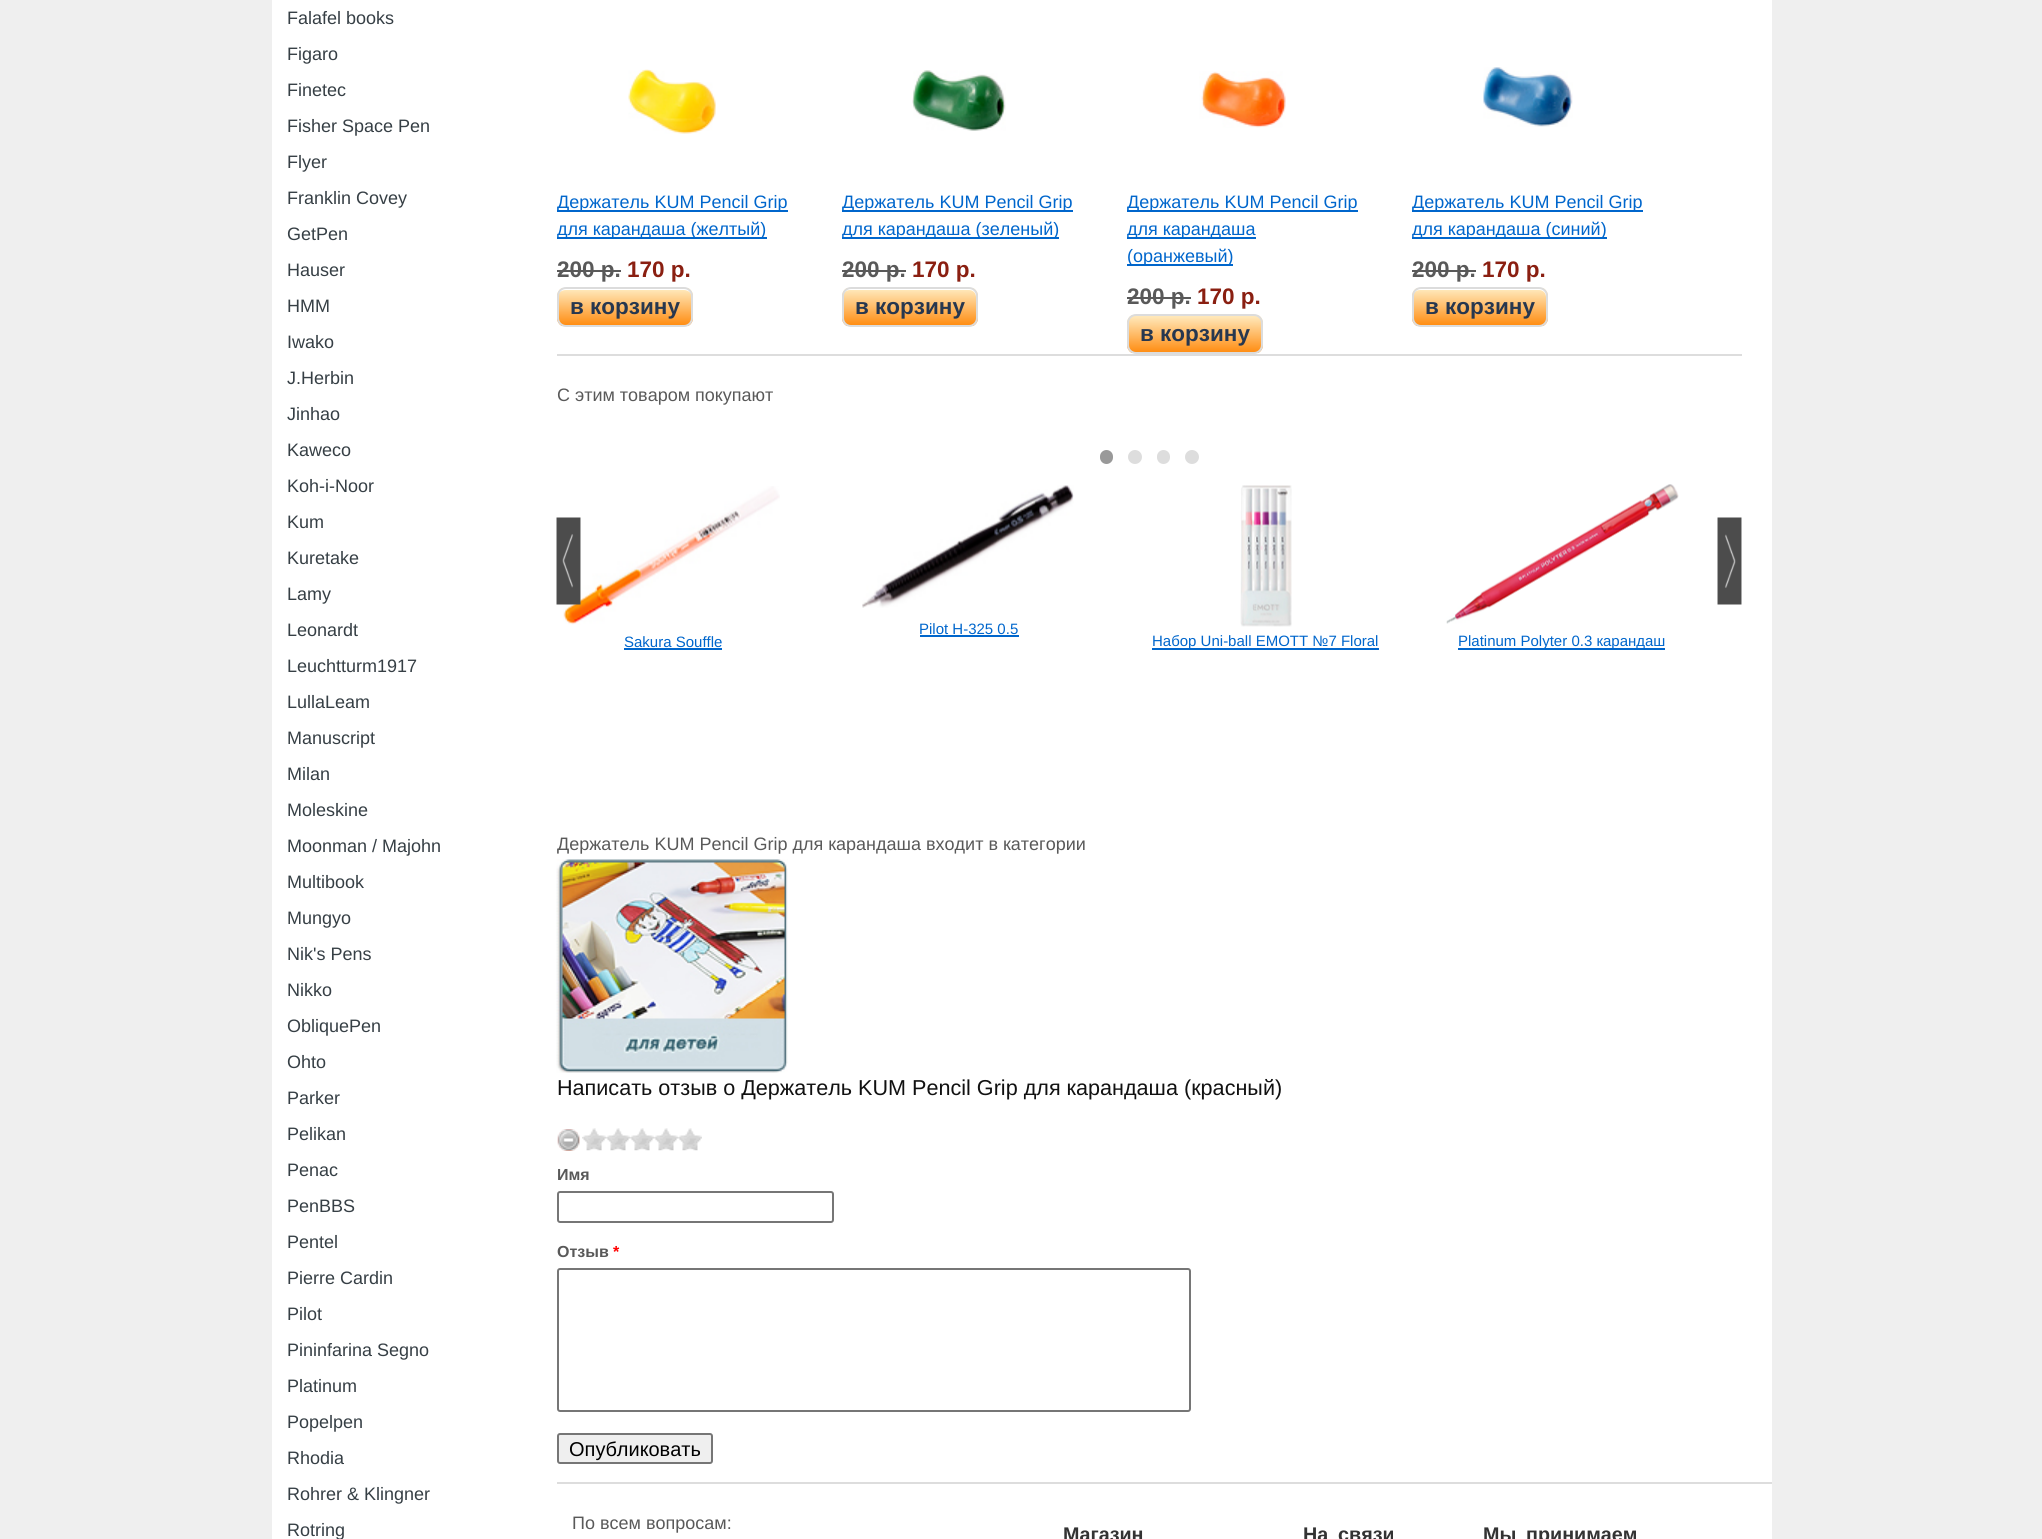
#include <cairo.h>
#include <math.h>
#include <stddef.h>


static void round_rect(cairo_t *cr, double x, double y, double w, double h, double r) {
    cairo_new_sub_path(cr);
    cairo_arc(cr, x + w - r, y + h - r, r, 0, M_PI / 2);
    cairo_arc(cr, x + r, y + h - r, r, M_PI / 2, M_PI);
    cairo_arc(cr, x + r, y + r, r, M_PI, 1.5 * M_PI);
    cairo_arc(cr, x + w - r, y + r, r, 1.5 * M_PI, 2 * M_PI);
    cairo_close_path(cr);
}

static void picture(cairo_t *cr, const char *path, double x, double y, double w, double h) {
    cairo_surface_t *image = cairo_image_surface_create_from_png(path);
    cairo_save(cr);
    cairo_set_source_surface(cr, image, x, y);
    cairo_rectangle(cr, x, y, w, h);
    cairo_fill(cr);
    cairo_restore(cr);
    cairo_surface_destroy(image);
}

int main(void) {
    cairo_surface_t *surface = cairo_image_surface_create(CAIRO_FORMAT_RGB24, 2042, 1539);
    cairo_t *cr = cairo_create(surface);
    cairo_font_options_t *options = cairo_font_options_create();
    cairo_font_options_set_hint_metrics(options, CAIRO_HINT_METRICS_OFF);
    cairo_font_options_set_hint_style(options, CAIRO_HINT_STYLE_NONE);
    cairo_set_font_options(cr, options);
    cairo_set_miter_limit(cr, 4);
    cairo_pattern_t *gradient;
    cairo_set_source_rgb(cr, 0.937, 0.937, 0.937);
    cairo_paint(cr);
    cairo_set_source_rgb(cr, 1, 1, 1);
    cairo_rectangle(cr, 272, 0, 1500, 1539);
    cairo_fill(cr);
    cairo_select_font_face(cr, "Liberation Sans", CAIRO_FONT_SLANT_NORMAL, CAIRO_FONT_WEIGHT_NORMAL);
    cairo_set_font_size(cr, 18);
    cairo_set_source_rgb(cr, 0.212, 0.247, 0.271);
    cairo_move_to(cr, 287, 24);
    cairo_show_text(cr, "Falafel books");
    cairo_move_to(cr, 287, 60);
    cairo_show_text(cr, "Figaro");
    cairo_move_to(cr, 287, 96);
    cairo_show_text(cr, "Finetec");
    cairo_move_to(cr, 287, 132);
    cairo_show_text(cr, "Fisher Space Pen");
    cairo_move_to(cr, 287, 168);
    cairo_show_text(cr, "Flyer");
    cairo_move_to(cr, 287, 204);
    cairo_show_text(cr, "Franklin Covey");
    cairo_move_to(cr, 287, 240);
    cairo_show_text(cr, "GetPen");
    cairo_move_to(cr, 287, 276);
    cairo_show_text(cr, "Hauser");
    cairo_move_to(cr, 287, 312);
    cairo_show_text(cr, "HMM");
    cairo_move_to(cr, 287, 348);
    cairo_show_text(cr, "Iwako");
    cairo_move_to(cr, 287, 384);
    cairo_show_text(cr, "J.Herbin");
    cairo_move_to(cr, 287, 420);
    cairo_show_text(cr, "Jinhao");
    cairo_move_to(cr, 287, 456);
    cairo_show_text(cr, "Kaweco");
    cairo_move_to(cr, 287, 492);
    cairo_show_text(cr, "Koh-i-Noor");
    cairo_move_to(cr, 287, 528);
    cairo_show_text(cr, "Kum");
    cairo_move_to(cr, 287, 564);
    cairo_show_text(cr, "Kuretake");
    cairo_move_to(cr, 287, 600);
    cairo_show_text(cr, "Lamy");
    cairo_move_to(cr, 287, 636);
    cairo_show_text(cr, "Leonardt");
    cairo_move_to(cr, 287, 672);
    cairo_show_text(cr, "Leuchtturm1917");
    cairo_move_to(cr, 287, 708);
    cairo_show_text(cr, "LullaLeam");
    cairo_move_to(cr, 287, 744);
    cairo_show_text(cr, "Manuscript");
    cairo_move_to(cr, 287, 780);
    cairo_show_text(cr, "Milan");
    cairo_move_to(cr, 287, 816);
    cairo_show_text(cr, "Moleskine");
    cairo_move_to(cr, 287, 852);
    cairo_show_text(cr, "Moonman / Majohn");
    cairo_move_to(cr, 287, 888);
    cairo_show_text(cr, "Multibook");
    cairo_move_to(cr, 287, 924);
    cairo_show_text(cr, "Mungyo");
    cairo_move_to(cr, 287, 960);
    cairo_show_text(cr, "Nik's Pens");
    cairo_move_to(cr, 287, 996);
    cairo_show_text(cr, "Nikko");
    cairo_move_to(cr, 287, 1032);
    cairo_show_text(cr, "ObliquePen");
    cairo_move_to(cr, 287, 1068);
    cairo_show_text(cr, "Ohto");
    cairo_move_to(cr, 287, 1104);
    cairo_show_text(cr, "Parker");
    cairo_move_to(cr, 287, 1140);
    cairo_show_text(cr, "Pelikan");
    cairo_move_to(cr, 287, 1176);
    cairo_show_text(cr, "Penac");
    cairo_move_to(cr, 287, 1212);
    cairo_show_text(cr, "PenBBS");
    cairo_move_to(cr, 287, 1248);
    cairo_show_text(cr, "Pentel");
    cairo_move_to(cr, 287, 1284);
    cairo_show_text(cr, "Pierre Cardin");
    cairo_move_to(cr, 287, 1320);
    cairo_show_text(cr, "Pilot");
    cairo_move_to(cr, 287, 1356);
    cairo_show_text(cr, "Pininfarina Segno");
    cairo_move_to(cr, 287, 1392);
    cairo_show_text(cr, "Platinum");
    cairo_move_to(cr, 287, 1428);
    cairo_show_text(cr, "Popelpen");
    cairo_move_to(cr, 287, 1464);
    cairo_show_text(cr, "Rhodia");
    cairo_move_to(cr, 287, 1500);
    cairo_show_text(cr, "Rohrer & Klingner");
    cairo_move_to(cr, 287, 1536);
    cairo_show_text(cr, "Rotring");
    picture(cr, "img1.png", 628, 69, 88, 65);
    cairo_set_source_rgb(cr, 0, 0.4, 0.8);
    cairo_rectangle(cr, 557, 210, 231, 2);
    cairo_fill(cr);
    cairo_move_to(cr, 557, 208);
    cairo_show_text(cr, "Держатель KUM Pencil Grip");
    cairo_rectangle(cr, 557, 237, 210, 2);
    cairo_fill(cr);
    cairo_move_to(cr, 557, 235);
    cairo_show_text(cr, "для карандаша (желтый)");
    cairo_select_font_face(cr, "Liberation Sans", CAIRO_FONT_SLANT_NORMAL, CAIRO_FONT_WEIGHT_BOLD);
    cairo_set_font_size(cr, 22.5);
    cairo_set_source_rgb(cr, 0.349, 0.349, 0.349);
    cairo_move_to(cr, 557, 277);
    cairo_show_text(cr, "200 р.");
    cairo_rectangle(cr, 557, 270, 64, 2);
    cairo_fill(cr);
    cairo_set_source_rgb(cr, 0.541, 0.122, 0.067);
    cairo_move_to(cr, 627, 277);
    cairo_show_text(cr, "170 р.");
    cairo_save(cr);
    round_rect(cr, 557, 287, 136, 40, 9);
    cairo_clip(cr);
    gradient = cairo_pattern_create_linear(558, 288, 558, 326);
    cairo_pattern_add_color_stop_rgba(gradient, 0.05, 1, 0.906, 0.722, 1);
    cairo_pattern_add_color_stop_rgba(gradient, 1, 1, 0.545, 0.059, 1);
    cairo_set_source(cr, gradient);
    cairo_pattern_destroy(gradient);
    cairo_rectangle(cr, 557, 288, 136, 38);
    cairo_fill(cr);
    cairo_restore(cr);
    cairo_set_source_rgb(cr, 1, 1, 1);
    cairo_new_path(cr);
    cairo_move_to(cr, 566, 290);
    cairo_line_to(cr, 684, 290);
    cairo_curve_to(cr, 688, 290, 692, 293, 692, 297);
    cairo_curve_to(cr, 692, 283, 672, 288, 664, 288);
    cairo_line_to(cr, 586, 288);
    cairo_curve_to(cr, 578, 288, 558, 283, 558, 297);
    cairo_curve_to(cr, 558, 293, 561, 290, 566, 290);
    cairo_close_path(cr);
    cairo_fill(cr);
    round_rect(cr, 558, 288, 134, 38, 8);
    cairo_set_source_rgb(cr, 0.863, 0.863, 0.863);
    cairo_stroke(cr);
    cairo_set_source_rgb(cr, 0.153, 0.216, 0.31);
    cairo_move_to(cr, 570, 314);
    cairo_show_text(cr, "в корзину");
    picture(cr, "img2.png", 912, 70, 94, 61);
    cairo_set_source_rgb(cr, 0, 0.4, 0.8);
    cairo_rectangle(cr, 842, 210, 231, 2);
    cairo_fill(cr);
    cairo_select_font_face(cr, "Liberation Sans", CAIRO_FONT_SLANT_NORMAL, CAIRO_FONT_WEIGHT_NORMAL);
    cairo_set_font_size(cr, 18);
    cairo_move_to(cr, 842, 208);
    cairo_show_text(cr, "Держатель KUM Pencil Grip");
    cairo_rectangle(cr, 842, 237, 217, 2);
    cairo_fill(cr);
    cairo_move_to(cr, 842, 235);
    cairo_show_text(cr, "для карандаша (зеленый)");
    cairo_select_font_face(cr, "Liberation Sans", CAIRO_FONT_SLANT_NORMAL, CAIRO_FONT_WEIGHT_BOLD);
    cairo_set_font_size(cr, 22.5);
    cairo_set_source_rgb(cr, 0.349, 0.349, 0.349);
    cairo_move_to(cr, 842, 277);
    cairo_show_text(cr, "200 р.");
    cairo_rectangle(cr, 842, 270, 64, 2);
    cairo_fill(cr);
    cairo_set_source_rgb(cr, 0.541, 0.122, 0.067);
    cairo_move_to(cr, 912, 277);
    cairo_show_text(cr, "170 р.");
    cairo_save(cr);
    round_rect(cr, 842, 287, 136, 40, 9);
    cairo_clip(cr);
    gradient = cairo_pattern_create_linear(843, 288, 843, 326);
    cairo_pattern_add_color_stop_rgba(gradient, 0.05, 1, 0.906, 0.722, 1);
    cairo_pattern_add_color_stop_rgba(gradient, 1, 1, 0.545, 0.059, 1);
    cairo_set_source(cr, gradient);
    cairo_pattern_destroy(gradient);
    cairo_rectangle(cr, 842, 288, 136, 38);
    cairo_fill(cr);
    cairo_restore(cr);
    cairo_set_source_rgb(cr, 1, 1, 1);
    cairo_new_path(cr);
    cairo_move_to(cr, 850, 290);
    cairo_line_to(cr, 969, 290);
    cairo_curve_to(cr, 973, 290, 976, 293, 976, 297);
    cairo_line_to(cr, 976, 320);
    cairo_line_to(cr, 976, 323);
    cairo_curve_to(cr, 976, 321, 977, 320, 977, 318);
    cairo_line_to(cr, 977, 296);
    cairo_curve_to(cr, 977, 292, 973, 288, 969, 288);
    cairo_line_to(cr, 851, 288);
    cairo_curve_to(cr, 847, 288, 843, 292, 843, 296);
    cairo_line_to(cr, 843, 297);
    cairo_curve_to(cr, 843, 293, 846, 290, 850, 290);
    cairo_close_path(cr);
    cairo_fill(cr);
    round_rect(cr, 843, 288, 134, 38, 8);
    cairo_set_source_rgb(cr, 0.863, 0.863, 0.863);
    cairo_stroke(cr);
    cairo_set_source_rgb(cr, 0.153, 0.216, 0.31);
    cairo_move_to(cr, 855, 314);
    cairo_show_text(cr, "в корзину");
    picture(cr, "img3.png", 1199, 71, 87, 57);
    cairo_set_source_rgb(cr, 0, 0.4, 0.8);
    cairo_rectangle(cr, 1127, 210, 231, 2);
    cairo_fill(cr);
    cairo_select_font_face(cr, "Liberation Sans", CAIRO_FONT_SLANT_NORMAL, CAIRO_FONT_WEIGHT_NORMAL);
    cairo_set_font_size(cr, 18);
    cairo_move_to(cr, 1127, 208);
    cairo_show_text(cr, "Держатель KUM Pencil Grip");
    cairo_rectangle(cr, 1127, 237, 129, 2);
    cairo_fill(cr);
    cairo_move_to(cr, 1127, 235);
    cairo_show_text(cr, "для карандаша");
    cairo_rectangle(cr, 1127, 264, 106, 2);
    cairo_fill(cr);
    cairo_move_to(cr, 1127, 262);
    cairo_show_text(cr, "(оранжевый)");
    cairo_select_font_face(cr, "Liberation Sans", CAIRO_FONT_SLANT_NORMAL, CAIRO_FONT_WEIGHT_BOLD);
    cairo_set_font_size(cr, 22.5);
    cairo_set_source_rgb(cr, 0.349, 0.349, 0.349);
    cairo_move_to(cr, 1127, 304);
    cairo_show_text(cr, "200 р.");
    cairo_rectangle(cr, 1127, 297, 64, 2);
    cairo_fill(cr);
    cairo_set_source_rgb(cr, 0.541, 0.122, 0.067);
    cairo_move_to(cr, 1197, 304);
    cairo_show_text(cr, "170 р.");
    cairo_save(cr);
    round_rect(cr, 1127, 314, 136, 40, 9);
    cairo_clip(cr);
    gradient = cairo_pattern_create_linear(1128, 315, 1128, 353);
    cairo_pattern_add_color_stop_rgba(gradient, 0.05, 1, 0.906, 0.722, 1);
    cairo_pattern_add_color_stop_rgba(gradient, 1, 1, 0.545, 0.059, 1);
    cairo_set_source(cr, gradient);
    cairo_pattern_destroy(gradient);
    cairo_rectangle(cr, 1127, 315, 136, 38);
    cairo_fill(cr);
    cairo_restore(cr);
    round_rect(cr, 1128, 315, 134, 38, 8);
    cairo_set_source_rgb(cr, 0.863, 0.863, 0.863);
    cairo_stroke(cr);
    cairo_set_source_rgb(cr, 0.153, 0.216, 0.31);
    cairo_move_to(cr, 1140, 341);
    cairo_show_text(cr, "в корзину");
    picture(cr, "img4.png", 1483, 67, 90, 60);
    cairo_set_source_rgb(cr, 0, 0.4, 0.8);
    cairo_rectangle(cr, 1412, 210, 231, 2);
    cairo_fill(cr);
    cairo_select_font_face(cr, "Liberation Sans", CAIRO_FONT_SLANT_NORMAL, CAIRO_FONT_WEIGHT_NORMAL);
    cairo_set_font_size(cr, 18);
    cairo_move_to(cr, 1412, 208);
    cairo_show_text(cr, "Держатель KUM Pencil Grip");
    cairo_rectangle(cr, 1412, 237, 195, 2);
    cairo_fill(cr);
    cairo_move_to(cr, 1412, 235);
    cairo_show_text(cr, "для карандаша (синий)");
    cairo_select_font_face(cr, "Liberation Sans", CAIRO_FONT_SLANT_NORMAL, CAIRO_FONT_WEIGHT_BOLD);
    cairo_set_font_size(cr, 22.5);
    cairo_set_source_rgb(cr, 0.349, 0.349, 0.349);
    cairo_move_to(cr, 1412, 277);
    cairo_show_text(cr, "200 р.");
    cairo_rectangle(cr, 1412, 270, 64, 2);
    cairo_fill(cr);
    cairo_set_source_rgb(cr, 0.541, 0.122, 0.067);
    cairo_move_to(cr, 1482, 277);
    cairo_show_text(cr, "170 р.");
    cairo_save(cr);
    round_rect(cr, 1412, 287, 136, 40, 9);
    cairo_clip(cr);
    gradient = cairo_pattern_create_linear(1413, 288, 1413, 326);
    cairo_pattern_add_color_stop_rgba(gradient, 0.05, 1, 0.906, 0.722, 1);
    cairo_pattern_add_color_stop_rgba(gradient, 1, 1, 0.545, 0.059, 1);
    cairo_set_source(cr, gradient);
    cairo_pattern_destroy(gradient);
    cairo_rectangle(cr, 1412, 288, 136, 38);
    cairo_fill(cr);
    cairo_restore(cr);
    cairo_set_source_rgb(cr, 1, 1, 1);
    cairo_new_path(cr);
    cairo_move_to(cr, 1420, 290);
    cairo_line_to(cr, 1539, 290);
    cairo_curve_to(cr, 1543, 290, 1546, 293, 1546, 297);
    cairo_line_to(cr, 1546, 320);
    cairo_line_to(cr, 1546, 323);
    cairo_curve_to(cr, 1546, 321, 1547, 320, 1547, 318);
    cairo_line_to(cr, 1547, 296);
    cairo_curve_to(cr, 1547, 292, 1543, 288, 1539, 288);
    cairo_line_to(cr, 1421, 288);
    cairo_curve_to(cr, 1417, 288, 1413, 292, 1413, 296);
    cairo_line_to(cr, 1413, 297);
    cairo_curve_to(cr, 1413, 293, 1416, 290, 1420, 290);
    cairo_close_path(cr);
    cairo_fill(cr);
    round_rect(cr, 1413, 288, 134, 38, 8);
    cairo_set_source_rgb(cr, 0.863, 0.863, 0.863);
    cairo_stroke(cr);
    cairo_set_source_rgb(cr, 0.153, 0.216, 0.31);
    cairo_move_to(cr, 1425, 314);
    cairo_show_text(cr, "в корзину");
    cairo_set_source_rgb(cr, 0.867, 0.867, 0.867);
    cairo_rectangle(cr, 557, 354, 1185, 2);
    cairo_fill(cr);
    cairo_select_font_face(cr, "Liberation Sans", CAIRO_FONT_SLANT_NORMAL, CAIRO_FONT_WEIGHT_NORMAL);
    cairo_set_font_size(cr, 18);
    cairo_set_source_rgb(cr, 0.349, 0.349, 0.349);
    cairo_move_to(cr, 557, 401);
    cairo_show_text(cr, "С этим товаром покупают");
    picture(cr, "img8.png", 563, 486, 217, 139);
    picture(cr, "img5.png", 556, 517, 25, 88);
    picture(cr, "img6.png", 1717, 517, 25, 88);
    cairo_set_source_rgb(cr, 0.6, 0.6, 0.6);
    round_rect(cr, 1100, 450, 13, 14, 6.5);
    cairo_fill(cr);
    cairo_set_source_rgb(cr, 0.867, 0.867, 0.867);
    cairo_arc(cr, 1135, 457, 7, 0, 2 * M_PI);
    cairo_fill(cr);
    round_rect(cr, 1157, 450, 13, 14, 6.5);
    cairo_fill(cr);
    cairo_arc(cr, 1192, 457, 7, 0, 2 * M_PI);
    cairo_fill(cr);
    picture(cr, "img7.png", 862, 485, 212, 123);
    cairo_set_font_size(cr, 15);
    cairo_set_source_rgb(cr, 0, 0.4, 0.8);
    cairo_move_to(cr, 919, 634);
    cairo_show_text(cr, "Pilot H-325 0.5");
    cairo_rectangle(cr, 920, 635, 99, 2);
    cairo_fill(cr);
    cairo_move_to(cr, 624, 647);
    cairo_show_text(cr, "Sakura Souffle");
    cairo_rectangle(cr, 624, 648, 98, 2);
    cairo_fill(cr);
    picture(cr, "img9.png", 1240, 485, 52, 142);
    cairo_rectangle(cr, 1152, 648, 227, 2);
    cairo_fill(cr);
    cairo_move_to(cr, 1152, 646);
    cairo_show_text(cr, "Набор Uni-ball EMOTT №7 Floral");
    picture(cr, "img10.png", 1446, 484, 233, 140);
    cairo_rectangle(cr, 1458, 648, 207, 2);
    cairo_fill(cr);
    cairo_move_to(cr, 1458, 646);
    cairo_show_text(cr, "Platinum Polyter 0.3 карандаш");
    cairo_set_font_size(cr, 18);
    cairo_set_source_rgb(cr, 0.349, 0.349, 0.349);
    cairo_move_to(cr, 557, 850);
    cairo_show_text(cr, "Держатель KUM Pencil Grip для карандаша входит в категории");
    picture(cr, "img11.png", 556, 859, 232, 214);
    cairo_set_font_size(cr, 21.6);
    cairo_set_source_rgb(cr, 0.067, 0.067, 0.067);
    cairo_move_to(cr, 557, 1095);
    cairo_show_text(cr, "Написать отзыв o Держатель KUM Pencil Grip для карандаша (красный)");
    picture(cr, "img12.png", 557, 1129, 23, 22);
    picture(cr, "img13.png", 557, 1129, 23, 22);
    picture(cr, "img14.png", 582, 1128, 12, 23);
    picture(cr, "img15.png", 594, 1128, 12, 23);
    picture(cr, "img16.png", 606, 1128, 12, 23);
    picture(cr, "img17.png", 618, 1128, 12, 23);
    picture(cr, "img16.png", 630, 1128, 12, 23);
    picture(cr, "img17.png", 642, 1128, 12, 23);
    picture(cr, "img16.png", 654, 1128, 12, 23);
    picture(cr, "img17.png", 666, 1128, 12, 23);
    picture(cr, "img16.png", 678, 1128, 12, 23);
    picture(cr, "img17.png", 690, 1128, 12, 23);
    cairo_select_font_face(cr, "Liberation Sans", CAIRO_FONT_SLANT_NORMAL, CAIRO_FONT_WEIGHT_BOLD);
    cairo_set_font_size(cr, 16);
    cairo_set_source_rgb(cr, 0.349, 0.349, 0.349);
    cairo_move_to(cr, 557, 1180);
    cairo_show_text(cr, "Имя");
    round_rect(cr, 558, 1192, 275, 30, 2);
    cairo_set_source_rgb(cr, 0.463, 0.463, 0.463);
    cairo_stroke(cr);
    cairo_set_source_rgb(cr, 0.349, 0.349, 0.349);
    cairo_move_to(cr, 557, 1257);
    cairo_show_text(cr, "Отзыв");
    cairo_set_source_rgb(cr, 1, 0, 0);
    cairo_move_to(cr, 613, 1257);
    cairo_show_text(cr, "*");
    round_rect(cr, 558, 1269, 632, 142, 2);
    cairo_set_source_rgb(cr, 0.463, 0.463, 0.463);
    cairo_stroke(cr);
    cairo_set_source_rgb(cr, 0.937, 0.937, 0.937);
    round_rect(cr, 558, 1434, 154, 29, 2);
    cairo_fill_preserve(cr);
    cairo_set_source_rgb(cr, 0.463, 0.463, 0.463);
    cairo_stroke(cr);
    cairo_select_font_face(cr, "Liberation Sans", CAIRO_FONT_SLANT_NORMAL, CAIRO_FONT_WEIGHT_NORMAL);
    cairo_set_font_size(cr, 20);
    cairo_set_source_rgb(cr, 0, 0, 0);
    cairo_move_to(cr, 569, 1456);
    cairo_show_text(cr, "Опубликовать");
    cairo_set_source_rgb(cr, 0.867, 0.867, 0.867);
    cairo_rectangle(cr, 557, 1482, 1215, 2);
    cairo_fill(cr);
    cairo_set_font_size(cr, 18);
    cairo_set_source_rgb(cr, 0.349, 0.349, 0.349);
    cairo_move_to(cr, 572, 1529);
    cairo_show_text(cr, "По всем вопросам:");
    cairo_select_font_face(cr, "Liberation Sans", CAIRO_FONT_SLANT_NORMAL, CAIRO_FONT_WEIGHT_BOLD);
    cairo_set_font_size(cr, 19.75);
    cairo_set_source_rgb(cr, 0.2, 0.2, 0.2);
    cairo_move_to(cr, 1063, 1541);
    cairo_show_text(cr, "Магазин");
    cairo_move_to(cr, 1303, 1541);
    cairo_show_text(cr, "На");
    cairo_move_to(cr, 1338, 1541);
    cairo_show_text(cr, "связи");
    cairo_move_to(cr, 1483, 1541);
    cairo_show_text(cr, "Мы");
    cairo_move_to(cr, 1526, 1541);
    cairo_show_text(cr, "принимаем");
    cairo_surface_write_to_png(surface, "page.png");
    cairo_font_options_destroy(options);
    cairo_destroy(cr);
    cairo_surface_destroy(surface);
    return 0;
}
